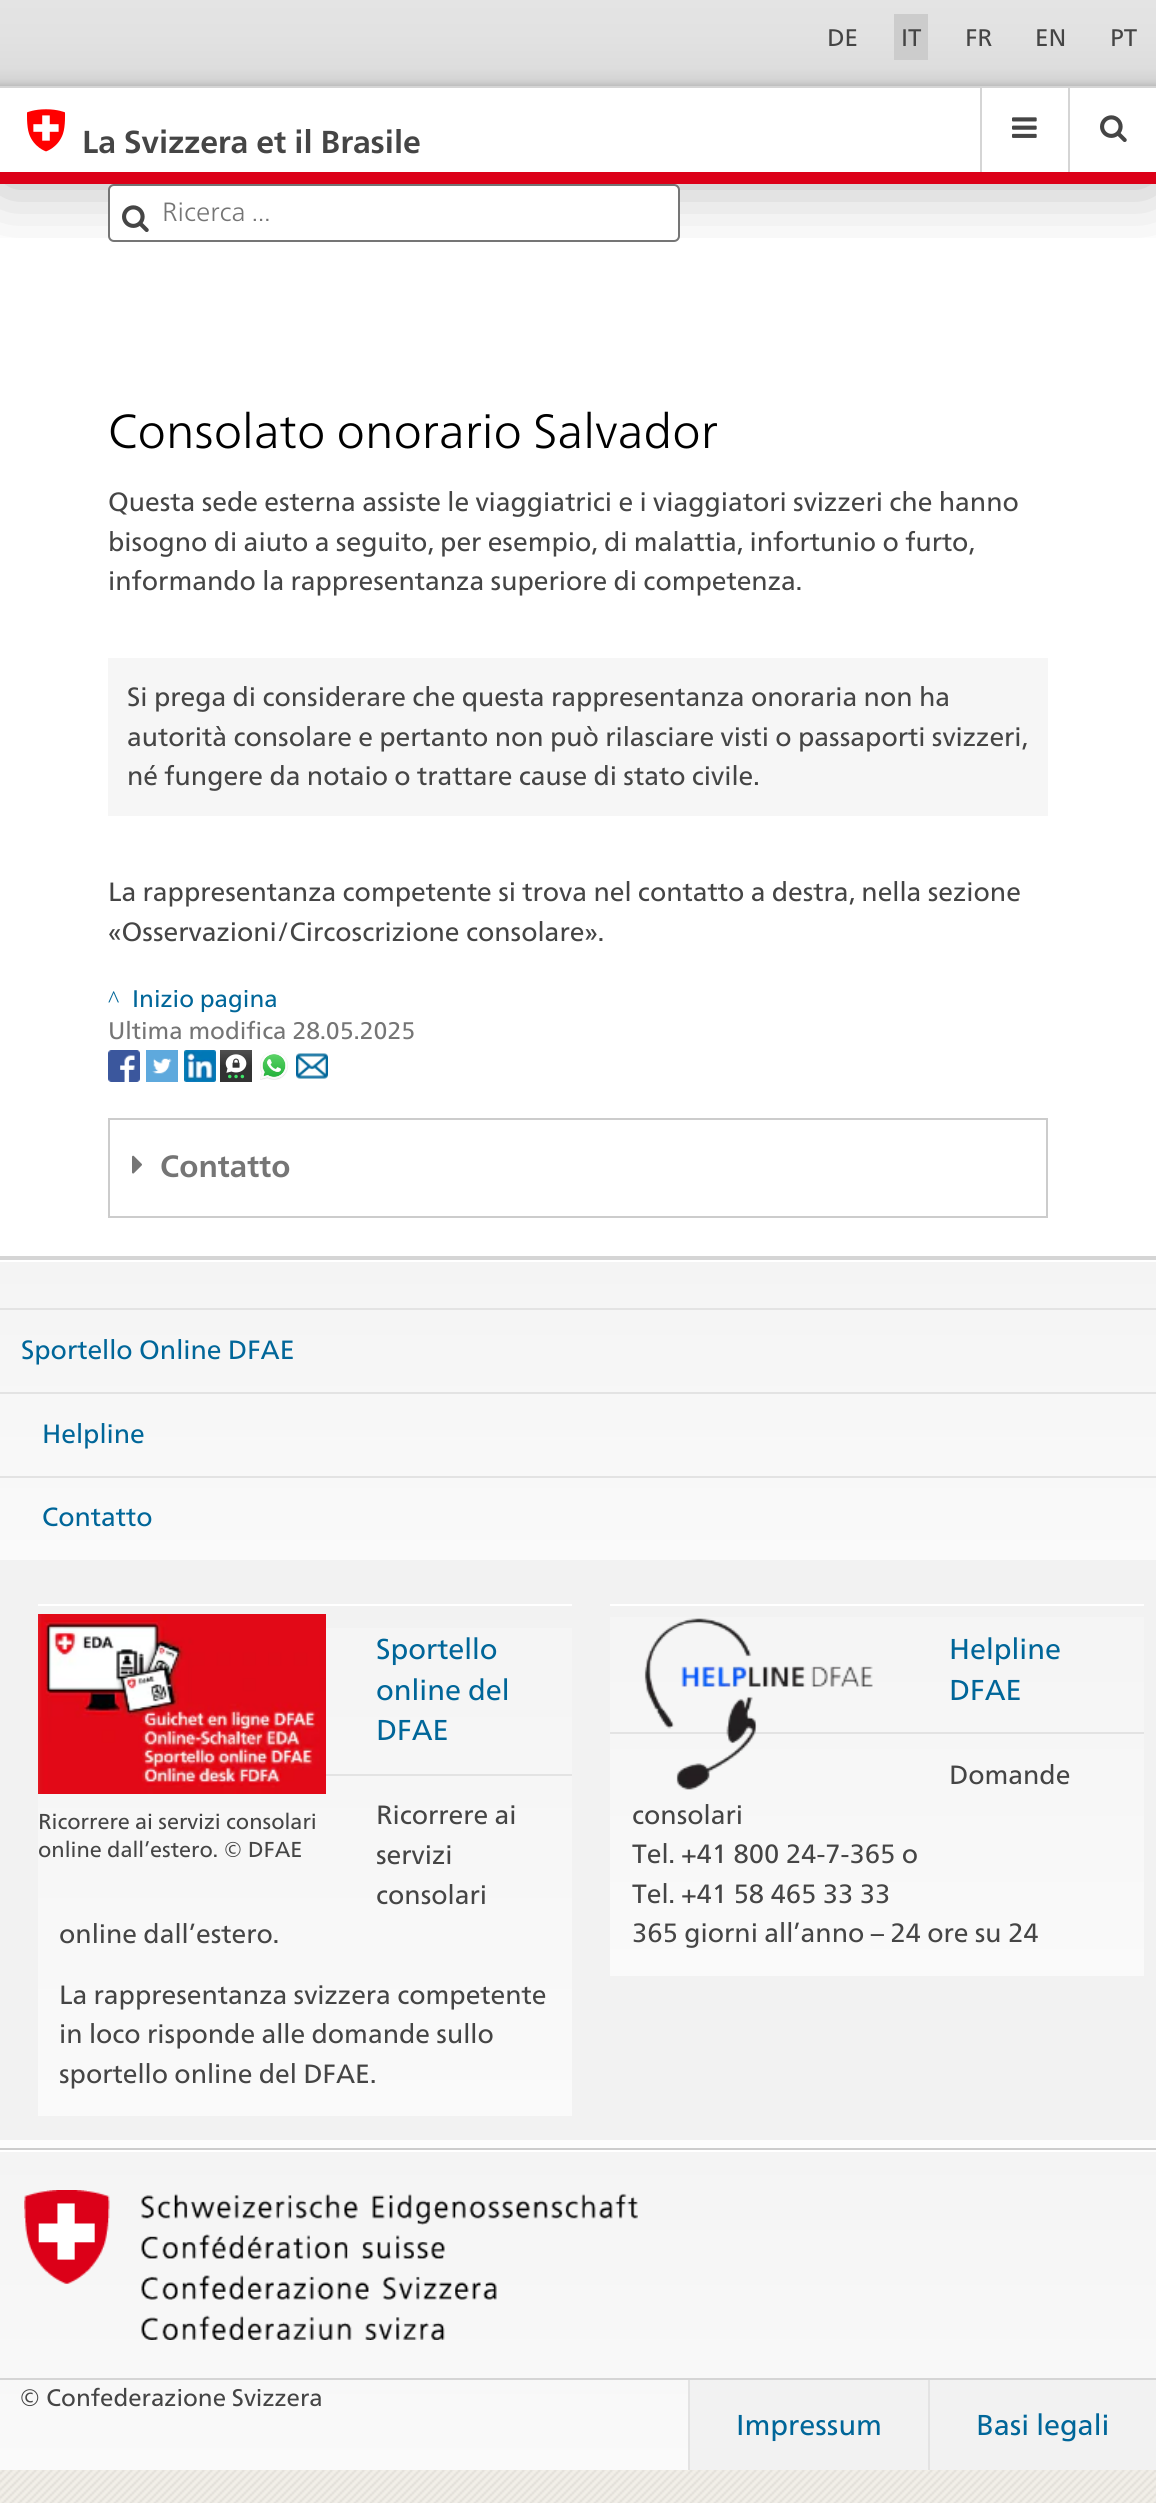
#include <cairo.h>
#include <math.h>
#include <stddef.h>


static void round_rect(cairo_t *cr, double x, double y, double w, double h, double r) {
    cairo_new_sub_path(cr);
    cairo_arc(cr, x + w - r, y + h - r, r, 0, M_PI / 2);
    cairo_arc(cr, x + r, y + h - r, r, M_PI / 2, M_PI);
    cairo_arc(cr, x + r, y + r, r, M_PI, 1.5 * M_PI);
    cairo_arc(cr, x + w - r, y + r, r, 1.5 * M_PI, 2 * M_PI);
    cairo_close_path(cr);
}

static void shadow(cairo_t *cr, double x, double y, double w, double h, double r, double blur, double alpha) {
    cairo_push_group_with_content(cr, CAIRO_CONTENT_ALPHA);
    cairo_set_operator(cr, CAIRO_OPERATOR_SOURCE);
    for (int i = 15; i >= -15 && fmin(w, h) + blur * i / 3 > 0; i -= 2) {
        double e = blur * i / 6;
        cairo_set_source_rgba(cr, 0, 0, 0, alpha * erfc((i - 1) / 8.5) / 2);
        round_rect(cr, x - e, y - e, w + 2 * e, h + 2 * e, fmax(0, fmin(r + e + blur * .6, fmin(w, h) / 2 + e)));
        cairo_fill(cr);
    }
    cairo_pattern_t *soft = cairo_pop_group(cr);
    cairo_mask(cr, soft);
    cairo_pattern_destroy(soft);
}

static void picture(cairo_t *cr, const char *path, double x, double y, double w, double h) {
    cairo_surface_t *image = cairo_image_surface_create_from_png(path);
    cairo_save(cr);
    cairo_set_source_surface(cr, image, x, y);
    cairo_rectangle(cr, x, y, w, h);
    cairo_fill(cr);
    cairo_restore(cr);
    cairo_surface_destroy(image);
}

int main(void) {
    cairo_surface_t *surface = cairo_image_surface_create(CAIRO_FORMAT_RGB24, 1156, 2503);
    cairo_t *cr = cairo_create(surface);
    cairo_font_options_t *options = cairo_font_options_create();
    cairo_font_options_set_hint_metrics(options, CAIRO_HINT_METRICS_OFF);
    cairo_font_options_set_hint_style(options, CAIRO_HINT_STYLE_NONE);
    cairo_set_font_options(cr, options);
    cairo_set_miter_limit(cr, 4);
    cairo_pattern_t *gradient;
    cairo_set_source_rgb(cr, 1, 1, 1);
    cairo_paint(cr);
    picture(cr, "img1.png", 0, 2470, 1156, 33);
    cairo_save(cr);
    cairo_rectangle(cr, 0, 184, 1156, 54);
    cairo_clip(cr);
    cairo_set_source_rgb(cr, 0, 0, 0);
    shadow(cr, 0, 88, 1156, 96, 0, 36, 0.3);
    cairo_restore(cr);
    gradient = cairo_pattern_create_linear(578, 0, 578, 86);
    cairo_pattern_add_color_stop_rgba(gradient, 0, 0.894, 0.894, 0.894, 1);
    cairo_pattern_add_color_stop_rgba(gradient, 0.39, 0.886, 0.886, 0.886, 1);
    cairo_pattern_add_color_stop_rgba(gradient, 0.79, 0.867, 0.867, 0.867, 1);
    cairo_pattern_add_color_stop_rgba(gradient, 0.91, 0.835, 0.835, 0.835, 1);
    cairo_pattern_add_color_stop_rgba(gradient, 0.95, 0.812, 0.812, 0.812, 1);
    cairo_pattern_add_color_stop_rgba(gradient, 1, 0.745, 0.745, 0.745, 1);
    cairo_set_source(cr, gradient);
    cairo_pattern_destroy(gradient);
    cairo_rectangle(cr, 0, 0, 1156, 86);
    cairo_fill(cr);
    cairo_set_source_rgb(cr, 0.835, 0.835, 0.835);
    cairo_rectangle(cr, 0, 86, 1156, 2);
    cairo_fill(cr);
    cairo_select_font_face(cr, "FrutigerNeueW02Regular", CAIRO_FONT_SLANT_NORMAL, CAIRO_FONT_WEIGHT_NORMAL);
    cairo_set_font_size(cr, 24);
    cairo_set_source_rgb(cr, 0.271, 0.271, 0.271);
    cairo_move_to(cr, 827, 46);
    cairo_show_text(cr, "DE");
    cairo_set_source_rgb(cr, 0.8, 0.8, 0.8);
    cairo_rectangle(cr, 894, 14, 34, 46);
    cairo_fill(cr);
    cairo_set_source_rgb(cr, 0.271, 0.271, 0.271);
    cairo_move_to(cr, 901, 46);
    cairo_show_text(cr, "IT");
    cairo_move_to(cr, 965, 46);
    cairo_show_text(cr, "FR");
    cairo_move_to(cr, 1035, 46);
    cairo_show_text(cr, "EN");
    cairo_move_to(cr, 1110, 46);
    cairo_show_text(cr, "PT");
    cairo_set_source_rgb(cr, 0.863, 0, 0.094);
    cairo_rectangle(cr, 0, 172, 1156, 12);
    cairo_fill(cr);
    picture(cr, "img2.png", 27, 109, 39, 43);
    cairo_select_font_face(cr, "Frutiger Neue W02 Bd", CAIRO_FONT_SLANT_NORMAL, CAIRO_FONT_WEIGHT_BOLD);
    cairo_set_font_size(cr, 31.75);
    cairo_set_source_rgb(cr, 0.271, 0.271, 0.271);
    cairo_move_to(cr, 82, 153);
    cairo_show_text(cr, "La Svizzera et il Brasile");
    cairo_set_source_rgb(cr, 0.835, 0.835, 0.835);
    cairo_rectangle(cr, 980, 88, 2, 84);
    cairo_fill(cr);
    picture(cr, "img3.png", 1012, 117, 25, 21);
    cairo_rectangle(cr, 1068, 88, 2, 84);
    cairo_fill(cr);
    picture(cr, "img4.png", 1100, 115, 27, 27);
    cairo_set_source_rgb(cr, 1, 1, 1);
    round_rect(cr, 109, 185, 570, 56, 5);
    cairo_fill_preserve(cr);
    cairo_set_source_rgb(cr, 0.459, 0.459, 0.459);
    cairo_stroke(cr);
    picture(cr, "img4.png", 122, 205, 27, 27);
    cairo_select_font_face(cr, "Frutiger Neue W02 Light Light", CAIRO_FONT_SLANT_NORMAL, CAIRO_FONT_WEIGHT_NORMAL);
    cairo_set_font_size(cr, 26.4);
    cairo_move_to(cr, 162, 221);
    cairo_show_text(cr, "Ricerca ...");
    cairo_set_font_size(cr, 48);
    cairo_set_source_rgb(cr, 0, 0, 0);
    cairo_move_to(cr, 108, 448);
    cairo_show_text(cr, "Consolato onorario Salvador");
    cairo_select_font_face(cr, "FrutigerNeueW02Regular", CAIRO_FONT_SLANT_NORMAL, CAIRO_FONT_WEIGHT_NORMAL);
    cairo_set_font_size(cr, 26.4);
    cairo_set_source_rgb(cr, 0.271, 0.271, 0.271);
    cairo_move_to(cr, 108, 511);
    cairo_show_text(cr, "Questa sede esterna assiste le viaggiatrici e i viaggiatori svizzeri che hanno");
    cairo_move_to(cr, 108, 551);
    cairo_show_text(cr, "bisogno di aiuto a seguito, per esempio, di malattia, infortunio o furto,");
    cairo_move_to(cr, 108, 590);
    cairo_show_text(cr, "informando la rappresentanza superiore di competenza.");
    cairo_set_source_rgb(cr, 0.961, 0.961, 0.961);
    cairo_rectangle(cr, 108, 658, 940, 158);
    cairo_fill(cr);
    cairo_set_source_rgb(cr, 0.271, 0.271, 0.271);
    cairo_move_to(cr, 127, 706);
    cairo_show_text(cr, "Si prega di considerare che questa rappresentanza onoraria non ha");
    cairo_move_to(cr, 127, 746);
    cairo_show_text(cr, "autorità consolare e pertanto non può rilasciare visti o passaporti svizzeri,");
    cairo_move_to(cr, 127, 785);
    cairo_show_text(cr, "né fungere da notaio o trattare cause di stato civile.");
    cairo_move_to(cr, 108, 901);
    cairo_show_text(cr, "La rappresentanza competente si trova nel contatto a destra, nella sezione");
    cairo_move_to(cr, 108, 941);
    cairo_show_text(cr, "«Osservazioni/Circoscrizione consolare».");
    cairo_select_font_face(cr, "Liberation Serif", CAIRO_FONT_SLANT_NORMAL, CAIRO_FONT_WEIGHT_NORMAL);
    cairo_set_font_size(cr, 24);
    cairo_set_source_rgb(cr, 0, 0.4, 0.6);
    cairo_move_to(cr, 108, 1007);
    cairo_show_text(cr, "^");
    cairo_select_font_face(cr, "FrutigerNeueW02Regular", CAIRO_FONT_SLANT_NORMAL, CAIRO_FONT_WEIGHT_NORMAL);
    cairo_move_to(cr, 132, 1007);
    cairo_show_text(cr, "Inizio pagina");
    cairo_set_source_rgb(cr, 0.459, 0.459, 0.459);
    cairo_move_to(cr, 108, 1039);
    cairo_show_text(cr, "Ultima modifica 28.05.2025");
    picture(cr, "img5.png", 108, 1050, 32, 32);
    picture(cr, "img6.png", 146, 1050, 32, 32);
    picture(cr, "img7.png", 184, 1050, 32, 32);
    picture(cr, "img8.png", 220, 1050, 32, 32);
    picture(cr, "img9.png", 260, 1051, 28, 29);
    picture(cr, "img10.png", 296, 1053, 32, 26);
    cairo_set_source_rgb(cr, 0.8, 0.8, 0.8);
    cairo_rectangle(cr, 108, 1216, 940, 2);
    cairo_fill(cr);
    cairo_rectangle(cr, 108, 1118, 940, 2);
    cairo_fill(cr);
    cairo_rectangle(cr, 1046, 1118, 2, 98);
    cairo_fill(cr);
    cairo_rectangle(cr, 108, 1118, 2, 98);
    cairo_fill(cr);
    picture(cr, "img11.png", 132, 1155, 10, 19);
    cairo_select_font_face(cr, "Frutiger Neue W02 Bd", CAIRO_FONT_SLANT_NORMAL, CAIRO_FONT_WEIGHT_BOLD);
    cairo_set_font_size(cr, 31);
    cairo_set_source_rgb(cr, 0.459, 0.459, 0.459);
    cairo_move_to(cr, 160, 1177);
    cairo_show_text(cr, "Contatto");
    cairo_set_source_rgb(cr, 0.949, 0.949, 0.949);
    cairo_rectangle(cr, 0, 1560, 1156, 580);
    cairo_fill(cr);
    cairo_set_source_rgb(cr, 0.835, 0.835, 0.835);
    cairo_rectangle(cr, 0, 1256, 1156, 4);
    cairo_fill(cr);
    gradient = cairo_pattern_create_linear(578, 1260, 578, 1560);
    cairo_pattern_add_color_stop_rgba(gradient, 0, 0.957, 0.957, 0.957, 1);
    cairo_pattern_add_color_stop_rgba(gradient, 1, 0.98, 0.98, 0.98, 1);
    cairo_set_source(cr, gradient);
    cairo_pattern_destroy(gradient);
    cairo_rectangle(cr, 0, 1262, 1156, 298);
    cairo_fill(cr);
    cairo_set_source_rgb(cr, 0.89, 0.89, 0.89);
    cairo_rectangle(cr, 0, 1308, 1156, 2);
    cairo_fill(cr);
    cairo_select_font_face(cr, "FrutigerNeueW02Regular", CAIRO_FONT_SLANT_NORMAL, CAIRO_FONT_WEIGHT_NORMAL);
    cairo_set_font_size(cr, 26.4);
    cairo_set_source_rgb(cr, 0, 0.4, 0.6);
    cairo_move_to(cr, 21, 1359);
    cairo_show_text(cr, "Sportello Online DFAE");
    cairo_set_source_rgb(cr, 0.89, 0.89, 0.89);
    cairo_rectangle(cr, 0, 1392, 1156, 2);
    cairo_fill(cr);
    cairo_set_source_rgb(cr, 0, 0.4, 0.6);
    cairo_move_to(cr, 42, 1443);
    cairo_show_text(cr, "Helpline");
    cairo_set_source_rgb(cr, 0.89, 0.89, 0.89);
    cairo_rectangle(cr, 0, 1476, 1156, 2);
    cairo_fill(cr);
    cairo_set_source_rgb(cr, 0, 0.4, 0.6);
    cairo_move_to(cr, 42, 1526);
    cairo_show_text(cr, "Contatto");
    gradient = cairo_pattern_create_linear(305, 1584, 305, 2116);
    cairo_pattern_add_color_stop_rgba(gradient, 0, 0.957, 0.957, 0.957, 1);
    cairo_pattern_add_color_stop_rgba(gradient, 1, 0.98, 0.98, 0.98, 1);
    cairo_set_source(cr, gradient);
    cairo_pattern_destroy(gradient);
    cairo_rectangle(cr, 38, 1628, 534, 488);
    cairo_fill(cr);
    cairo_set_source_rgb(cr, 1, 1, 1);
    cairo_rectangle(cr, 38, 1604, 534, 2);
    cairo_fill(cr);
    cairo_set_source_rgb(cr, 0.89, 0.89, 0.89);
    cairo_rectangle(cr, 326, 1774, 246, 2);
    cairo_fill(cr);
    cairo_set_font_size(cr, 28.75);
    cairo_set_source_rgb(cr, 0, 0.4, 0.6);
    cairo_move_to(cr, 376, 1659);
    cairo_show_text(cr, "Sportello");
    cairo_move_to(cr, 376, 1700);
    cairo_show_text(cr, "online del");
    cairo_move_to(cr, 376, 1740);
    cairo_show_text(cr, "DFAE");
    cairo_set_font_size(cr, 26.4);
    cairo_set_source_rgb(cr, 0.271, 0.271, 0.271);
    cairo_move_to(cr, 376, 1824);
    cairo_show_text(cr, "Ricorrere ai");
    cairo_move_to(cr, 376, 1864);
    cairo_show_text(cr, "servizi");
    cairo_move_to(cr, 376, 1904);
    cairo_show_text(cr, "consolari");
    cairo_move_to(cr, 59, 1943);
    cairo_show_text(cr, "online dall’estero.");
    picture(cr, "img12.png", 38, 1614, 288, 180);
    cairo_set_font_size(cr, 21.6);
    cairo_move_to(cr, 38, 1829);
    cairo_show_text(cr, "Ricorrere ai servizi consolari");
    cairo_move_to(cr, 38, 1857);
    cairo_show_text(cr, "online dall’estero. © DFAE");
    cairo_set_font_size(cr, 26.4);
    cairo_move_to(cr, 59, 2004);
    cairo_show_text(cr, "La rappresentanza svizzera competente");
    cairo_move_to(cr, 59, 2043);
    cairo_show_text(cr, "in loco risponde alle domande sullo");
    cairo_move_to(cr, 59, 2083);
    cairo_show_text(cr, "sportello online del DFAE.");
    gradient = cairo_pattern_create_linear(877, 1584, 877, 1976);
    cairo_pattern_add_color_stop_rgba(gradient, 0, 0.957, 0.957, 0.957, 1);
    cairo_pattern_add_color_stop_rgba(gradient, 1, 0.98, 0.98, 0.98, 1);
    cairo_set_source(cr, gradient);
    cairo_pattern_destroy(gradient);
    cairo_rectangle(cr, 610, 1617, 534, 359);
    cairo_fill(cr);
    cairo_set_source_rgb(cr, 0.89, 0.89, 0.89);
    cairo_rectangle(cr, 610, 1732, 534, 2);
    cairo_fill(cr);
    picture(cr, "img13.png", 644, 1618, 229, 172);
    cairo_set_source_rgb(cr, 1, 1, 1);
    cairo_rectangle(cr, 610, 1604, 534, 2);
    cairo_fill(cr);
    cairo_set_font_size(cr, 28.75);
    cairo_set_source_rgb(cr, 0, 0.4, 0.6);
    cairo_move_to(cr, 949, 1659);
    cairo_show_text(cr, "Helpline");
    cairo_move_to(cr, 949, 1700);
    cairo_show_text(cr, "DFAE");
    cairo_set_font_size(cr, 26.4);
    cairo_set_source_rgb(cr, 0.271, 0.271, 0.271);
    cairo_move_to(cr, 949, 1784);
    cairo_show_text(cr, "Domande");
    cairo_move_to(cr, 632, 1824);
    cairo_show_text(cr, "consolari");
    cairo_move_to(cr, 632, 1863);
    cairo_show_text(cr, "Tel. +41 800 24-7-365 o");
    cairo_move_to(cr, 632, 1903);
    cairo_show_text(cr, "Tel. +41 58 465 33 33");
    cairo_move_to(cr, 632, 1942);
    cairo_show_text(cr, "365 giorni all’anno – 24 ore su 24");
    cairo_set_source_rgb(cr, 0.988, 0.988, 0.988);
    cairo_rectangle(cr, 0, 2140, 1156, 8);
    cairo_fill(cr);
    cairo_set_source_rgb(cr, 0.8, 0.8, 0.8);
    cairo_rectangle(cr, 0, 2148, 1156, 2);
    cairo_fill(cr);
    gradient = cairo_pattern_create_linear(578, 2150, 578, 2470);
    cairo_pattern_add_color_stop_rgba(gradient, 0, 0.957, 0.957, 0.957, 1);
    cairo_pattern_add_color_stop_rgba(gradient, 1, 0.98, 0.98, 0.98, 1);
    cairo_set_source(cr, gradient);
    cairo_pattern_destroy(gradient);
    cairo_rectangle(cr, 0, 2152, 1156, 318);
    cairo_fill(cr);
    cairo_set_source_rgb(cr, 0.835, 0.835, 0.835);
    cairo_rectangle(cr, 0, 2378, 1156, 2);
    cairo_fill(cr);
    picture(cr, "img14.png", 24, 2190, 614, 150);
    cairo_set_font_size(cr, 24);
    cairo_set_source_rgb(cr, 0.271, 0.271, 0.271);
    cairo_move_to(cr, 19, 2406);
    cairo_show_text(cr, "© Confederazione Svizzera");
    cairo_set_source_rgb(cr, 0.949, 0.949, 0.949);
    cairo_rectangle(cr, 690, 2380, 238, 90);
    cairo_fill(cr);
    cairo_set_source_rgb(cr, 0.89, 0.89, 0.89);
    cairo_rectangle(cr, 688, 2380, 2, 90);
    cairo_fill(cr);
    cairo_set_font_size(cr, 28.75);
    cairo_set_source_rgb(cr, 0, 0.4, 0.6);
    cairo_move_to(cr, 736, 2435);
    cairo_show_text(cr, "Impressum");
    cairo_set_source_rgb(cr, 0.949, 0.949, 0.949);
    cairo_rectangle(cr, 930, 2380, 226, 90);
    cairo_fill(cr);
    cairo_set_source_rgb(cr, 0.89, 0.89, 0.89);
    cairo_rectangle(cr, 928, 2380, 2, 90);
    cairo_fill(cr);
    cairo_set_source_rgb(cr, 0, 0.4, 0.6);
    cairo_move_to(cr, 976, 2435);
    cairo_show_text(cr, "Basi legali");
    cairo_surface_write_to_png(surface, "page.png");
    cairo_font_options_destroy(options);
    cairo_destroy(cr);
    cairo_surface_destroy(surface);
    return 0;
}
